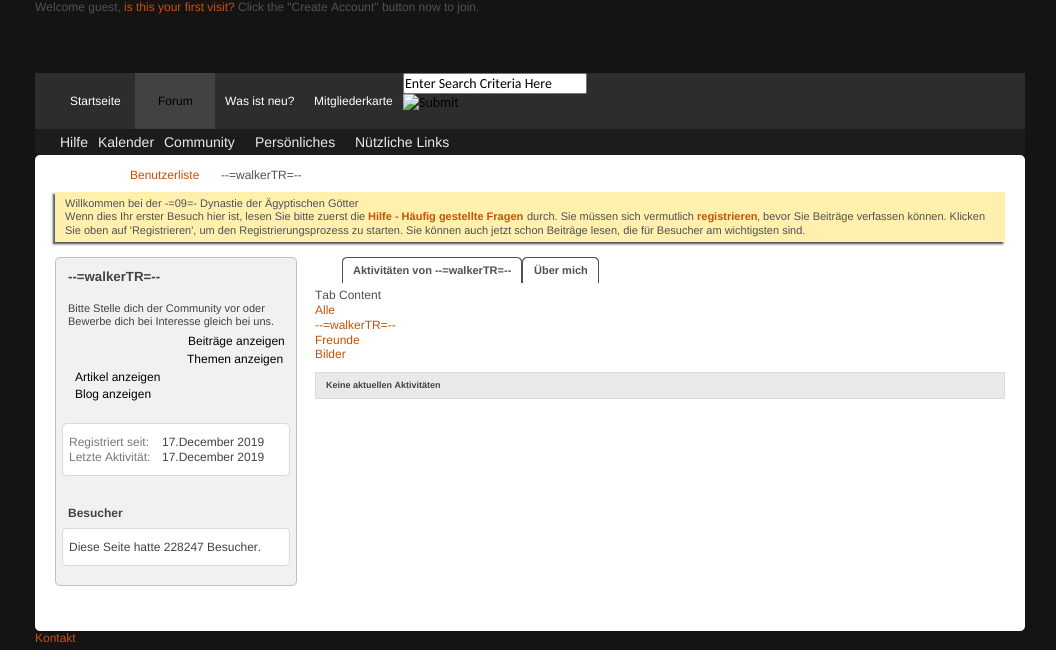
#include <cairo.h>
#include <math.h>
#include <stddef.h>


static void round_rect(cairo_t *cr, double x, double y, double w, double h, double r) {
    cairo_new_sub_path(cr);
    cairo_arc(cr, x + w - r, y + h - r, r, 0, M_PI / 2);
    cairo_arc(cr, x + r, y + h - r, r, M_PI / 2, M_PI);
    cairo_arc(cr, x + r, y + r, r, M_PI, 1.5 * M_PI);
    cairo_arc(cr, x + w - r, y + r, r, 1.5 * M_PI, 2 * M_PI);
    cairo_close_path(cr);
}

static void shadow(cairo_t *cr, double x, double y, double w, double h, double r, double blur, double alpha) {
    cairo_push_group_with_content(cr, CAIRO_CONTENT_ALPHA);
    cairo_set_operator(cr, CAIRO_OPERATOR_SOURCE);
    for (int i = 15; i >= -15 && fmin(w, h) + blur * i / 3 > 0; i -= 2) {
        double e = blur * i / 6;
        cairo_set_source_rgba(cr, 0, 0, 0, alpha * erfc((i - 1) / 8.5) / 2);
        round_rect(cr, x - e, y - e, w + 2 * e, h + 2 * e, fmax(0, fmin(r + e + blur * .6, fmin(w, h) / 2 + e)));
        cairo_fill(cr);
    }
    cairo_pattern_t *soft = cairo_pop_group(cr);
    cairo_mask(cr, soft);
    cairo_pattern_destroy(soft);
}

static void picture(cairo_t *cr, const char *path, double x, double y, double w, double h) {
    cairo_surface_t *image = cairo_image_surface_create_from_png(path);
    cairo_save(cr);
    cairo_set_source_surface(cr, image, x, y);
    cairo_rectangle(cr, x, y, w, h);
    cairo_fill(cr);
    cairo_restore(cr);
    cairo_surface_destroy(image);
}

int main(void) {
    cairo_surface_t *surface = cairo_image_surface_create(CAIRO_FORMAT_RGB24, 1056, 650);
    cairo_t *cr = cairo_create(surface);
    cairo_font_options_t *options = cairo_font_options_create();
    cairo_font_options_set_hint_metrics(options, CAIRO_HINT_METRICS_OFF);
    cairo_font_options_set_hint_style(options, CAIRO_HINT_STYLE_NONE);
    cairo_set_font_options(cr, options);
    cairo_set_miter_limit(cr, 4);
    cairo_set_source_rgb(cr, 0.082, 0.082, 0.082);
    cairo_paint(cr);
    cairo_select_font_face(cr, "Liberation Sans", CAIRO_FONT_SLANT_NORMAL, CAIRO_FONT_WEIGHT_NORMAL);
    cairo_set_font_size(cr, 12);
    cairo_set_source_rgb(cr, 0.302, 0.318, 0.325);
    cairo_move_to(cr, 35, 11);
    cairo_show_text(cr, "Welcome guest,");
    cairo_set_source_rgb(cr, 0.78, 0.318, 0.016);
    cairo_move_to(cr, 124, 11);
    cairo_show_text(cr, "is this your first visit?");
    cairo_set_source_rgb(cr, 0.302, 0.318, 0.325);
    cairo_move_to(cr, 238, 11);
    cairo_show_text(cr, "Click the \"Create Account\" button now to join.");
    cairo_set_source_rgb(cr, 0.11, 0.11, 0.11);
    cairo_new_path(cr);
    cairo_move_to(cr, 35, 73);
    cairo_line_to(cr, 1025, 73);
    cairo_line_to(cr, 1025, 150);
    cairo_curve_to(cr, 1025, 153, 1023, 155, 1020, 155);
    cairo_line_to(cr, 40, 155);
    cairo_curve_to(cr, 37, 155, 35, 153, 35, 150);
    cairo_close_path(cr);
    cairo_fill(cr);
    cairo_set_source_rgb(cr, 0.176, 0.176, 0.176);
    cairo_rectangle(cr, 35, 73, 990, 56);
    cairo_fill(cr);
    cairo_set_source_rgb(cr, 1, 1, 1);
    round_rect(cr, 403.5, 73.5, 183, 20, 1.5);
    cairo_fill_preserve(cr);
    cairo_set_source_rgb(cr, 0.463, 0.463, 0.463);
    cairo_set_line_width(cr, 1);
    cairo_stroke(cr);
    cairo_select_font_face(cr, "Carlito", CAIRO_FONT_SLANT_NORMAL, CAIRO_FONT_WEIGHT_NORMAL);
    cairo_set_font_size(cr, 13.9);
    cairo_set_source_rgb(cr, 0, 0, 0);
    cairo_move_to(cr, 405, 88);
    cairo_show_text(cr, "Enter Search Criteria Here");
    picture(cr, "img1.png", 403, 94, 56, 16);
    cairo_select_font_face(cr, "Liberation Sans", CAIRO_FONT_SLANT_NORMAL, CAIRO_FONT_WEIGHT_NORMAL);
    cairo_set_font_size(cr, 12);
    cairo_set_source_rgb(cr, 1, 1, 1);
    cairo_move_to(cr, 70, 105);
    cairo_show_text(cr, "Startseite");
    cairo_set_source_rgb(cr, 0.259, 0.259, 0.263);
    cairo_rectangle(cr, 135, 73, 80, 56);
    cairo_fill(cr);
    cairo_set_source_rgb(cr, 0, 0, 0);
    cairo_move_to(cr, 158, 105);
    cairo_show_text(cr, "Forum");
    cairo_set_source_rgb(cr, 1, 1, 1);
    cairo_move_to(cr, 225, 105);
    cairo_show_text(cr, "Was ist neu?");
    cairo_move_to(cr, 314, 105);
    cairo_show_text(cr, "Mitgliederkarte");
    cairo_set_font_size(cr, 14);
    cairo_set_source_rgb(cr, 0.914, 0.914, 0.914);
    cairo_move_to(cr, 60, 147);
    cairo_show_text(cr, "Hilfe");
    cairo_move_to(cr, 98, 147);
    cairo_show_text(cr, "Kalender");
    cairo_move_to(cr, 164, 147);
    cairo_show_text(cr, "Community");
    cairo_move_to(cr, 255, 147);
    cairo_show_text(cr, "Persönliches");
    cairo_move_to(cr, 355, 147);
    cairo_show_text(cr, "Nützliche Links");
    cairo_set_source_rgb(cr, 1, 1, 1);
    round_rect(cr, 35, 155, 990, 476, 5);
    cairo_fill(cr);
    cairo_set_font_size(cr, 12);
    cairo_set_source_rgb(cr, 0.78, 0.318, 0.016);
    cairo_move_to(cr, 130, 179);
    cairo_show_text(cr, "Benutzerliste");
    cairo_set_source_rgb(cr, 0.302, 0.318, 0.325);
    cairo_move_to(cr, 221, 179);
    cairo_show_text(cr, "--=walkerTR=--");
    cairo_set_source_rgb(cr, 0.302, 0.318, 0.325);
    shadow(cr, 53, 194, 950, 50, 0, 1, 1);
    cairo_set_source_rgb(cr, 1, 0.941, 0.682);
    cairo_rectangle(cr, 55, 192, 950, 50);
    cairo_fill(cr);
    cairo_set_font_size(cr, 11);
    cairo_set_source_rgb(cr, 0.302, 0.318, 0.325);
    cairo_move_to(cr, 65, 207);
    cairo_show_text(cr, "Willkommen bei der -=09=- Dynastie der Ägyptischen Götter");
    cairo_move_to(cr, 65, 220);
    cairo_show_text(cr, "Wenn dies Ihr erster Besuch hier ist, lesen Sie bitte zuerst die");
    cairo_select_font_face(cr, "Liberation Sans", CAIRO_FONT_SLANT_NORMAL, CAIRO_FONT_WEIGHT_BOLD);
    cairo_set_source_rgb(cr, 0.78, 0.318, 0.016);
    cairo_move_to(cr, 368, 220);
    cairo_show_text(cr, "Hilfe - Häufig gestellte Fragen");
    cairo_select_font_face(cr, "Liberation Sans", CAIRO_FONT_SLANT_NORMAL, CAIRO_FONT_WEIGHT_NORMAL);
    cairo_set_source_rgb(cr, 0.302, 0.318, 0.325);
    cairo_move_to(cr, 527, 220);
    cairo_show_text(cr, "durch. Sie müssen sich vermutlich");
    cairo_select_font_face(cr, "Liberation Sans", CAIRO_FONT_SLANT_NORMAL, CAIRO_FONT_WEIGHT_BOLD);
    cairo_set_source_rgb(cr, 0.78, 0.318, 0.016);
    cairo_move_to(cr, 697, 220);
    cairo_show_text(cr, "registrieren");
    cairo_select_font_face(cr, "Liberation Sans", CAIRO_FONT_SLANT_NORMAL, CAIRO_FONT_WEIGHT_NORMAL);
    cairo_set_source_rgb(cr, 0.302, 0.318, 0.325);
    cairo_move_to(cr, 757, 220);
    cairo_show_text(cr, ", bevor Sie Beiträge verfassen können. Klicken");
    cairo_move_to(cr, 65, 234);
    cairo_show_text(cr, "Sie oben auf 'Registrieren', um den Registrierungsprozess zu starten. Sie können auch jetzt schon Beiträge lesen, die für Besucher am wichtigsten sind.");
    cairo_set_source_rgb(cr, 0.945, 0.945, 0.945);
    round_rect(cr, 55.5, 257.5, 241, 328, 4.5);
    cairo_fill_preserve(cr);
    cairo_set_source_rgb(cr, 0.757, 0.757, 0.757);
    cairo_stroke(cr);
    cairo_select_font_face(cr, "Liberation Sans", CAIRO_FONT_SLANT_NORMAL, CAIRO_FONT_WEIGHT_BOLD);
    cairo_set_font_size(cr, 13.25);
    cairo_set_source_rgb(cr, 0.259, 0.259, 0.259);
    cairo_move_to(cr, 68, 281);
    cairo_show_text(cr, "--=walkerTR=--");
    cairo_select_font_face(cr, "Liberation Sans", CAIRO_FONT_SLANT_NORMAL, CAIRO_FONT_WEIGHT_NORMAL);
    cairo_set_font_size(cr, 11);
    cairo_move_to(cr, 68, 312);
    cairo_show_text(cr, "Bitte Stelle dich der Community vor oder");
    cairo_move_to(cr, 68, 325);
    cairo_show_text(cr, "Bewerbe dich bei Interesse gleich bei uns.");
    cairo_set_font_size(cr, 12);
    cairo_set_source_rgb(cr, 0, 0, 0);
    cairo_move_to(cr, 188, 345);
    cairo_show_text(cr, "Beiträge anzeigen");
    cairo_move_to(cr, 187, 363);
    cairo_show_text(cr, "Themen anzeigen");
    cairo_move_to(cr, 75, 381);
    cairo_show_text(cr, "Artikel anzeigen");
    cairo_move_to(cr, 75, 398);
    cairo_show_text(cr, "Blog anzeigen");
    cairo_set_source_rgb(cr, 1, 1, 1);
    round_rect(cr, 62.5, 423.5, 227, 52, 4.5);
    cairo_fill_preserve(cr);
    cairo_set_source_rgb(cr, 0.855, 0.855, 0.855);
    cairo_stroke(cr);
    cairo_set_source_rgb(cr, 1, 1, 1);
    cairo_rectangle(cr, 286, 424, 1, 1);
    cairo_fill(cr);
    cairo_set_source_rgb(cr, 0.467, 0.467, 0.467);
    cairo_move_to(cr, 69, 446);
    cairo_show_text(cr, "Registriert seit:");
    cairo_set_source_rgb(cr, 0.259, 0.259, 0.259);
    cairo_move_to(cr, 162, 446);
    cairo_show_text(cr, "17.December 2019");
    cairo_set_source_rgb(cr, 0.467, 0.467, 0.467);
    cairo_move_to(cr, 69, 461);
    cairo_show_text(cr, "Letzte Aktivität:");
    cairo_set_source_rgb(cr, 0.259, 0.259, 0.259);
    cairo_move_to(cr, 162, 461);
    cairo_show_text(cr, "17.December 2019");
    cairo_select_font_face(cr, "Liberation Sans", CAIRO_FONT_SLANT_NORMAL, CAIRO_FONT_WEIGHT_BOLD);
    cairo_move_to(cr, 68, 517);
    cairo_show_text(cr, "Besucher");
    cairo_set_source_rgb(cr, 1, 1, 1);
    round_rect(cr, 62.5, 528.5, 227, 37, 4.5);
    cairo_fill_preserve(cr);
    cairo_set_source_rgb(cr, 0.855, 0.855, 0.855);
    cairo_stroke(cr);
    cairo_set_source_rgb(cr, 1, 1, 1);
    cairo_rectangle(cr, 286, 529, 1, 1);
    cairo_fill(cr);
    cairo_select_font_face(cr, "Liberation Sans", CAIRO_FONT_SLANT_NORMAL, CAIRO_FONT_WEIGHT_NORMAL);
    cairo_set_source_rgb(cr, 0.259, 0.259, 0.259);
    cairo_move_to(cr, 69, 551);
    cairo_show_text(cr, "Diese Seite hatte 228247 Besucher.");
    cairo_set_source_rgb(cr, 0.302, 0.318, 0.325);
    cairo_set_fill_rule(cr, CAIRO_FILL_RULE_EVEN_ODD);
    cairo_new_path(cr);
    cairo_move_to(cr, 347, 257);
    cairo_line_to(cr, 517, 257);
    cairo_curve_to(cr, 520, 257, 522, 259, 522, 262);
    cairo_line_to(cr, 522, 283);
    cairo_line_to(cr, 342, 283);
    cairo_line_to(cr, 342, 262);
    cairo_curve_to(cr, 342, 259, 344, 257, 347, 257);
    cairo_close_path(cr);
    cairo_move_to(cr, 347, 258);
    cairo_line_to(cr, 517, 258);
    cairo_curve_to(cr, 519, 258, 521, 260, 521, 262);
    cairo_line_to(cr, 521, 283);
    cairo_line_to(cr, 343, 283);
    cairo_line_to(cr, 343, 262);
    cairo_curve_to(cr, 343, 260, 345, 258, 347, 258);
    cairo_close_path(cr);
    cairo_fill(cr);
    cairo_select_font_face(cr, "Liberation Sans", CAIRO_FONT_SLANT_NORMAL, CAIRO_FONT_WEIGHT_BOLD);
    cairo_set_font_size(cr, 11);
    cairo_move_to(cr, 353, 274);
    cairo_show_text(cr, "Aktivitäten von --=walkerTR=--");
    cairo_new_path(cr);
    cairo_move_to(cr, 527, 257);
    cairo_line_to(cr, 594, 257);
    cairo_curve_to(cr, 597, 257, 599, 259, 599, 262);
    cairo_line_to(cr, 599, 283);
    cairo_line_to(cr, 522, 283);
    cairo_line_to(cr, 522, 262);
    cairo_curve_to(cr, 522, 259, 524, 257, 527, 257);
    cairo_close_path(cr);
    cairo_move_to(cr, 527, 258);
    cairo_line_to(cr, 594, 258);
    cairo_curve_to(cr, 596, 258, 598, 260, 598, 262);
    cairo_line_to(cr, 598, 283);
    cairo_line_to(cr, 523, 283);
    cairo_line_to(cr, 523, 262);
    cairo_curve_to(cr, 523, 260, 525, 258, 527, 258);
    cairo_close_path(cr);
    cairo_fill(cr);
    cairo_move_to(cr, 534, 274);
    cairo_show_text(cr, "Über mich");
    cairo_select_font_face(cr, "Liberation Sans", CAIRO_FONT_SLANT_NORMAL, CAIRO_FONT_WEIGHT_NORMAL);
    cairo_set_font_size(cr, 12);
    cairo_move_to(cr, 315, 299);
    cairo_show_text(cr, "Tab Content");
    cairo_set_source_rgb(cr, 0.78, 0.318, 0.016);
    cairo_move_to(cr, 315, 314);
    cairo_show_text(cr, "Alle");
    cairo_move_to(cr, 315, 329);
    cairo_show_text(cr, "--=walkerTR=--");
    cairo_move_to(cr, 315, 344);
    cairo_show_text(cr, "Freunde");
    cairo_move_to(cr, 315, 358);
    cairo_show_text(cr, "Bilder");
    cairo_set_source_rgb(cr, 0.914, 0.914, 0.914);
    cairo_rectangle(cr, 315.5, 372.5, 689, 26);
    cairo_fill_preserve(cr);
    cairo_set_source_rgb(cr, 0.859, 0.859, 0.851);
    cairo_stroke(cr);
    cairo_select_font_face(cr, "Liberation Sans", CAIRO_FONT_SLANT_NORMAL, CAIRO_FONT_WEIGHT_BOLD);
    cairo_set_font_size(cr, 9);
    cairo_set_source_rgb(cr, 0.259, 0.259, 0.259);
    cairo_move_to(cr, 326, 388);
    cairo_show_text(cr, "Keine aktuellen Aktivitäten");
    cairo_select_font_face(cr, "Liberation Sans", CAIRO_FONT_SLANT_NORMAL, CAIRO_FONT_WEIGHT_NORMAL);
    cairo_set_font_size(cr, 12);
    cairo_set_source_rgb(cr, 0.78, 0.318, 0.016);
    cairo_move_to(cr, 35, 642);
    cairo_show_text(cr, "Kontakt");
    cairo_surface_write_to_png(surface, "page.png");
    cairo_font_options_destroy(options);
    cairo_destroy(cr);
    cairo_surface_destroy(surface);
    return 0;
}
